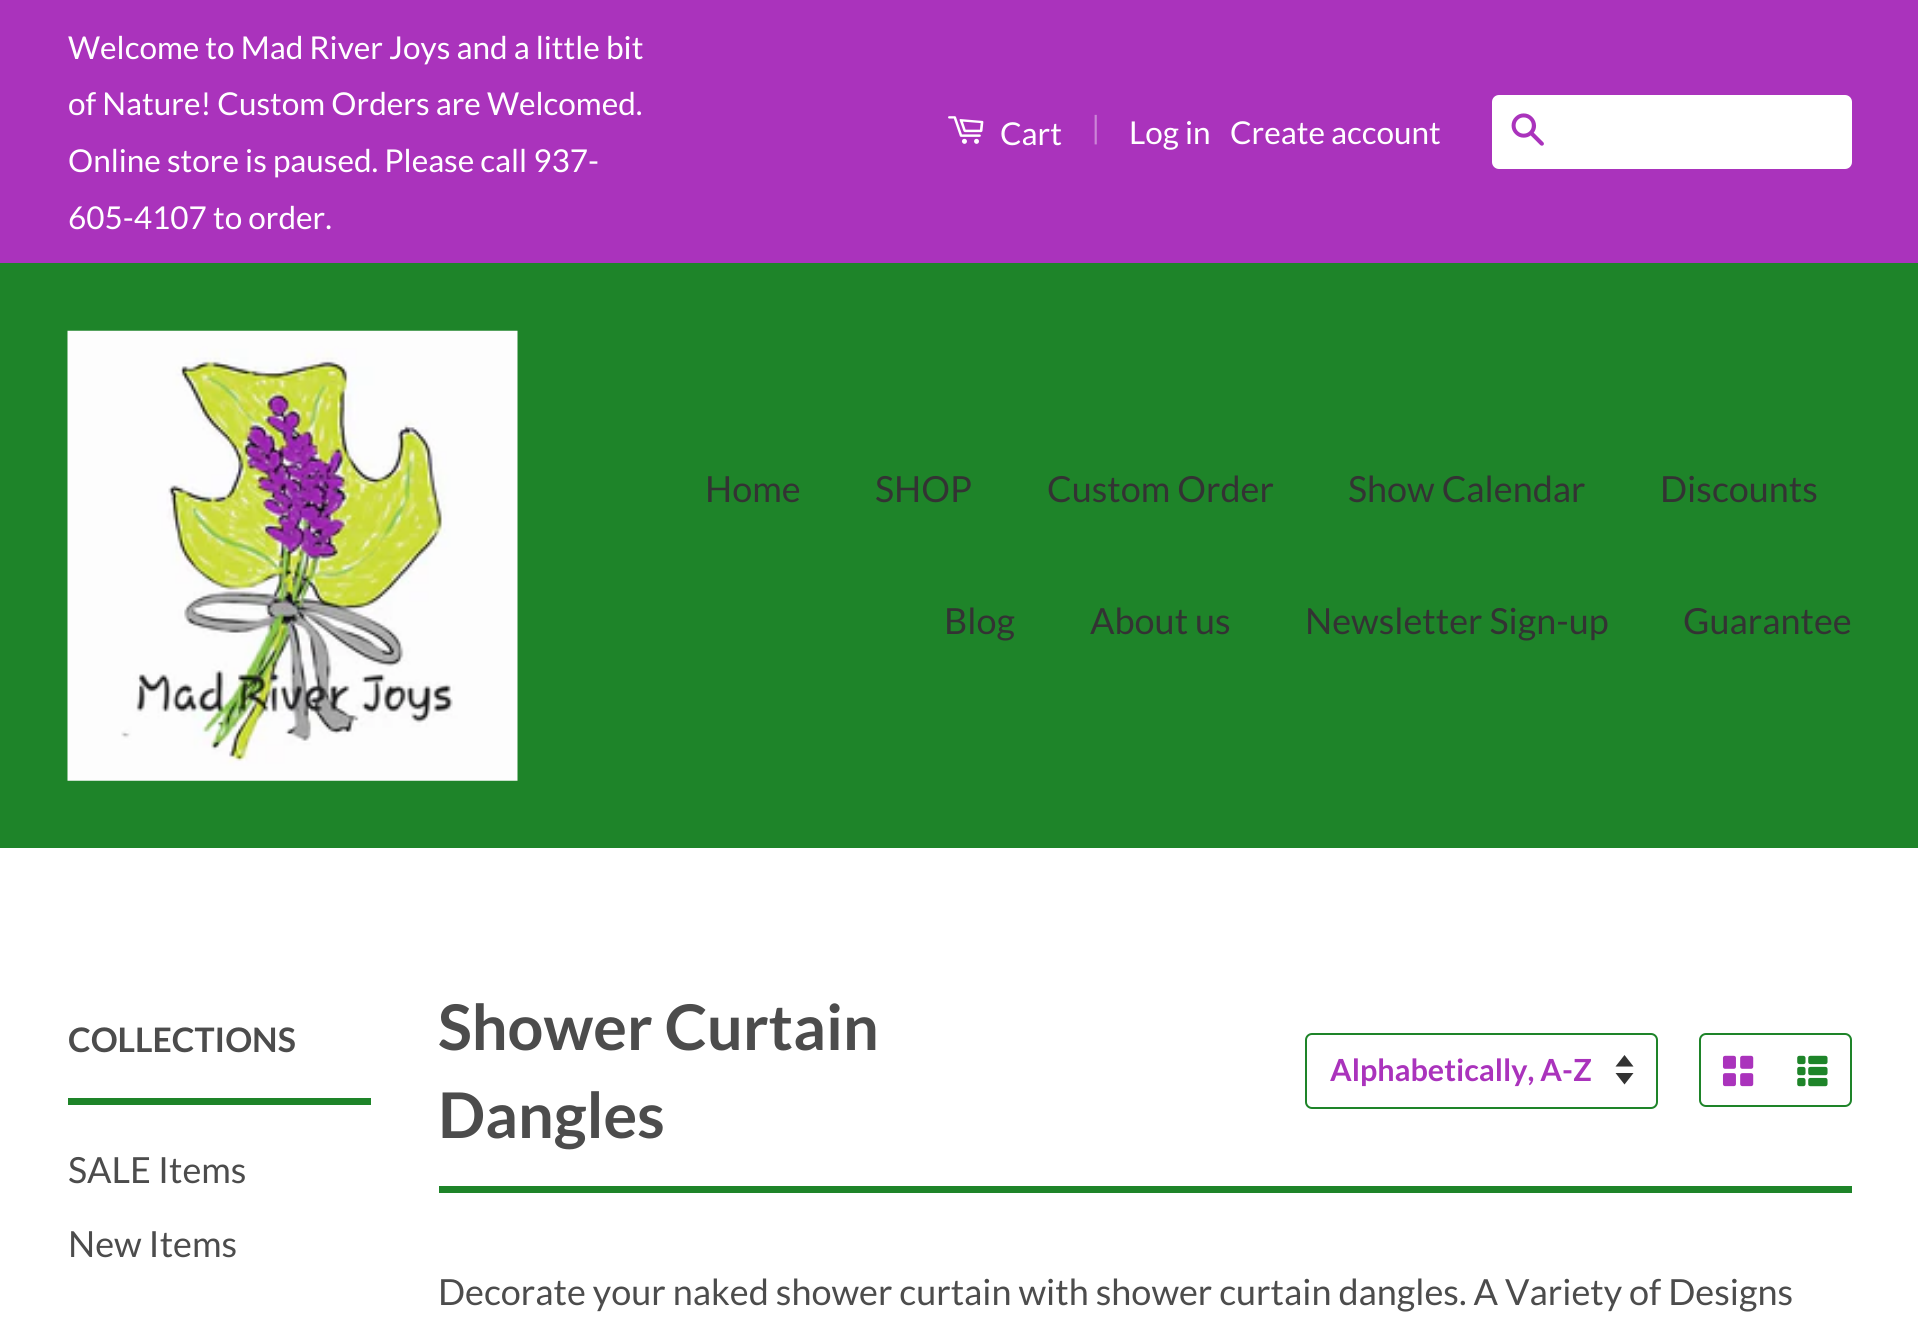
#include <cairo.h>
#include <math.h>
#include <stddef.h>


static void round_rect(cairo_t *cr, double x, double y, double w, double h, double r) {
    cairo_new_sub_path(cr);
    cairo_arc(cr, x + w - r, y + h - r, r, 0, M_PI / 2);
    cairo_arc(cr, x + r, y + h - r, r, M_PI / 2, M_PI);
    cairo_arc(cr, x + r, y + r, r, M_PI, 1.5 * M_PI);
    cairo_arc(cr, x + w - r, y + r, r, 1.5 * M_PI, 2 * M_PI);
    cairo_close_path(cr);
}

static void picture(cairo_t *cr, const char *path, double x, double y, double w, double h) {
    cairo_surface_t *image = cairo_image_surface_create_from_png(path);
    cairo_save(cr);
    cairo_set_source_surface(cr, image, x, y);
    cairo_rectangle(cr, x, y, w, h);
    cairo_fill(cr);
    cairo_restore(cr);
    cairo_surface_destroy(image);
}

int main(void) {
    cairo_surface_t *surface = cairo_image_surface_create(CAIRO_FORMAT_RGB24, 1918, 1319);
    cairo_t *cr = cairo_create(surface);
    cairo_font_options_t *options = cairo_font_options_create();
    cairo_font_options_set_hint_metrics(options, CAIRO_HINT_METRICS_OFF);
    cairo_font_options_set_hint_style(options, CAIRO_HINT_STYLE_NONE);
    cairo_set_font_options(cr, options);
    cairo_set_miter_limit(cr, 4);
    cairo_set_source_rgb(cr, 1, 1, 1);
    cairo_paint(cr);
    cairo_set_source_rgb(cr, 0.667, 0.2, 0.737);
    cairo_rectangle(cr, 0, 0, 1918, 263);
    cairo_fill(cr);
    cairo_select_font_face(cr, "Lato", CAIRO_FONT_SLANT_NORMAL, CAIRO_FONT_WEIGHT_NORMAL);
    cairo_set_font_size(cr, 31.5);
    cairo_set_source_rgb(cr, 1, 1, 1);
    cairo_move_to(cr, 68, 59);
    cairo_show_text(cr, "Welcome to Mad River Joys and a little bit");
    cairo_move_to(cr, 68, 115);
    cairo_show_text(cr, "of Nature! Custom Orders are Welcomed.");
    cairo_move_to(cr, 68, 172);
    cairo_show_text(cr, "Online store is paused. Please call 937-");
    cairo_move_to(cr, 68, 229);
    cairo_show_text(cr, "605-4107 to order.");
    picture(cr, "img1.png", 948, 116, 36, 28);
    cairo_move_to(cr, 1000, 145);
    cairo_show_text(cr, "Cart");
    cairo_set_source_rgb(cr, 0.8, 0.522, 0.843);
    cairo_move_to(cr, 1091, 139);
    cairo_show_text(cr, "|");
    cairo_set_source_rgb(cr, 1, 1, 1);
    cairo_move_to(cr, 1129, 144);
    cairo_show_text(cr, "Log in");
    cairo_move_to(cr, 1230, 144);
    cairo_show_text(cr, "Create account");
    round_rect(cr, 1492, 95, 360, 74, 7);
    cairo_fill(cr);
    picture(cr, "img2.png", 1511, 113, 33, 33);
    cairo_set_source_rgb(cr, 0.118, 0.518, 0.161);
    cairo_rectangle(cr, 0, 263, 1918, 585);
    cairo_fill(cr);
    picture(cr, "img3.png", 67, 330, 451, 451);
    cairo_set_font_size(cr, 36);
    cairo_set_source_rgb(cr, 0.2, 0.2, 0.2);
    cairo_move_to(cr, 705, 502);
    cairo_show_text(cr, "Home");
    cairo_move_to(cr, 875, 502);
    cairo_show_text(cr, "SHOP");
    cairo_move_to(cr, 1047, 502);
    cairo_show_text(cr, "Custom Order");
    cairo_move_to(cr, 1348, 502);
    cairo_show_text(cr, "Show Calendar");
    cairo_move_to(cr, 1660, 502);
    cairo_show_text(cr, "Discounts");
    cairo_move_to(cr, 944, 634);
    cairo_show_text(cr, "Blog");
    cairo_move_to(cr, 1090, 634);
    cairo_show_text(cr, "About us");
    cairo_move_to(cr, 1305, 634);
    cairo_show_text(cr, "Newsletter Sign-up");
    cairo_move_to(cr, 1683, 634);
    cairo_show_text(cr, "Guarantee");
    cairo_set_source_rgb(cr, 0.118, 0.518, 0.161);
    cairo_rectangle(cr, 68, 1098, 303, 7);
    cairo_fill(cr);
    cairo_select_font_face(cr, "Lato", CAIRO_FONT_SLANT_NORMAL, CAIRO_FONT_WEIGHT_BOLD);
    cairo_set_font_size(cr, 33.75);
    cairo_set_source_rgb(cr, 0.298, 0.298, 0.298);
    cairo_move_to(cr, 68, 1052);
    cairo_show_text(cr, "COLLECTIONS");
    cairo_select_font_face(cr, "Lato", CAIRO_FONT_SLANT_NORMAL, CAIRO_FONT_WEIGHT_NORMAL);
    cairo_set_font_size(cr, 36);
    cairo_move_to(cr, 68, 1183);
    cairo_show_text(cr, "SALE Items");
    cairo_move_to(cr, 68, 1257);
    cairo_show_text(cr, "New Items");
    cairo_set_source_rgb(cr, 0.118, 0.518, 0.161);
    cairo_rectangle(cr, 439, 1186, 1413, 7);
    cairo_fill(cr);
    cairo_select_font_face(cr, "Lato", CAIRO_FONT_SLANT_NORMAL, CAIRO_FONT_WEIGHT_BOLD);
    cairo_set_font_size(cr, 63);
    cairo_set_source_rgb(cr, 0.298, 0.298, 0.298);
    cairo_move_to(cr, 438, 1050);
    cairo_show_text(cr, "Shower Curtain");
    cairo_move_to(cr, 438, 1138);
    cairo_show_text(cr, "Dangles");
    cairo_set_source_rgb(cr, 0.2, 0.2, 0.2);
    cairo_new_path(cr);
    cairo_move_to(cr, 1615.5, 1073);
    cairo_line_to(cr, 1624.5, 1084.5);
    cairo_line_to(cr, 1633.5, 1073);
    cairo_close_path(cr);
    cairo_move_to(cr, 1624.5, 1055);
    cairo_line_to(cr, 1615.5, 1066.5);
    cairo_line_to(cr, 1633.5, 1066.5);
    cairo_close_path(cr);
    cairo_fill(cr);
    round_rect(cr, 1306, 1034, 351, 74, 6);
    cairo_set_source_rgb(cr, 0.118, 0.518, 0.161);
    cairo_stroke(cr);
    cairo_set_font_size(cr, 30.5);
    cairo_set_source_rgb(cr, 0.667, 0.2, 0.737);
    cairo_move_to(cr, 1330, 1081);
    cairo_show_text(cr, "Alphabetically, A-Z");
    round_rect(cr, 1700, 1034, 151, 72, 6);
    cairo_set_source_rgb(cr, 0.118, 0.518, 0.161);
    cairo_stroke(cr);
    picture(cr, "img4.png", 1722, 1055, 32, 32);
    picture(cr, "img5.png", 1797, 1055, 31, 32);
    cairo_select_font_face(cr, "Lato", CAIRO_FONT_SLANT_NORMAL, CAIRO_FONT_WEIGHT_NORMAL);
    cairo_set_font_size(cr, 36);
    cairo_set_source_rgb(cr, 0.298, 0.298, 0.298);
    cairo_move_to(cr, 438, 1305);
    cairo_show_text(cr, "Decorate your naked shower curtain with shower curtain dangles. A Variety of Designs");
    cairo_surface_write_to_png(surface, "page.png");
    cairo_font_options_destroy(options);
    cairo_destroy(cr);
    cairo_surface_destroy(surface);
    return 0;
}
